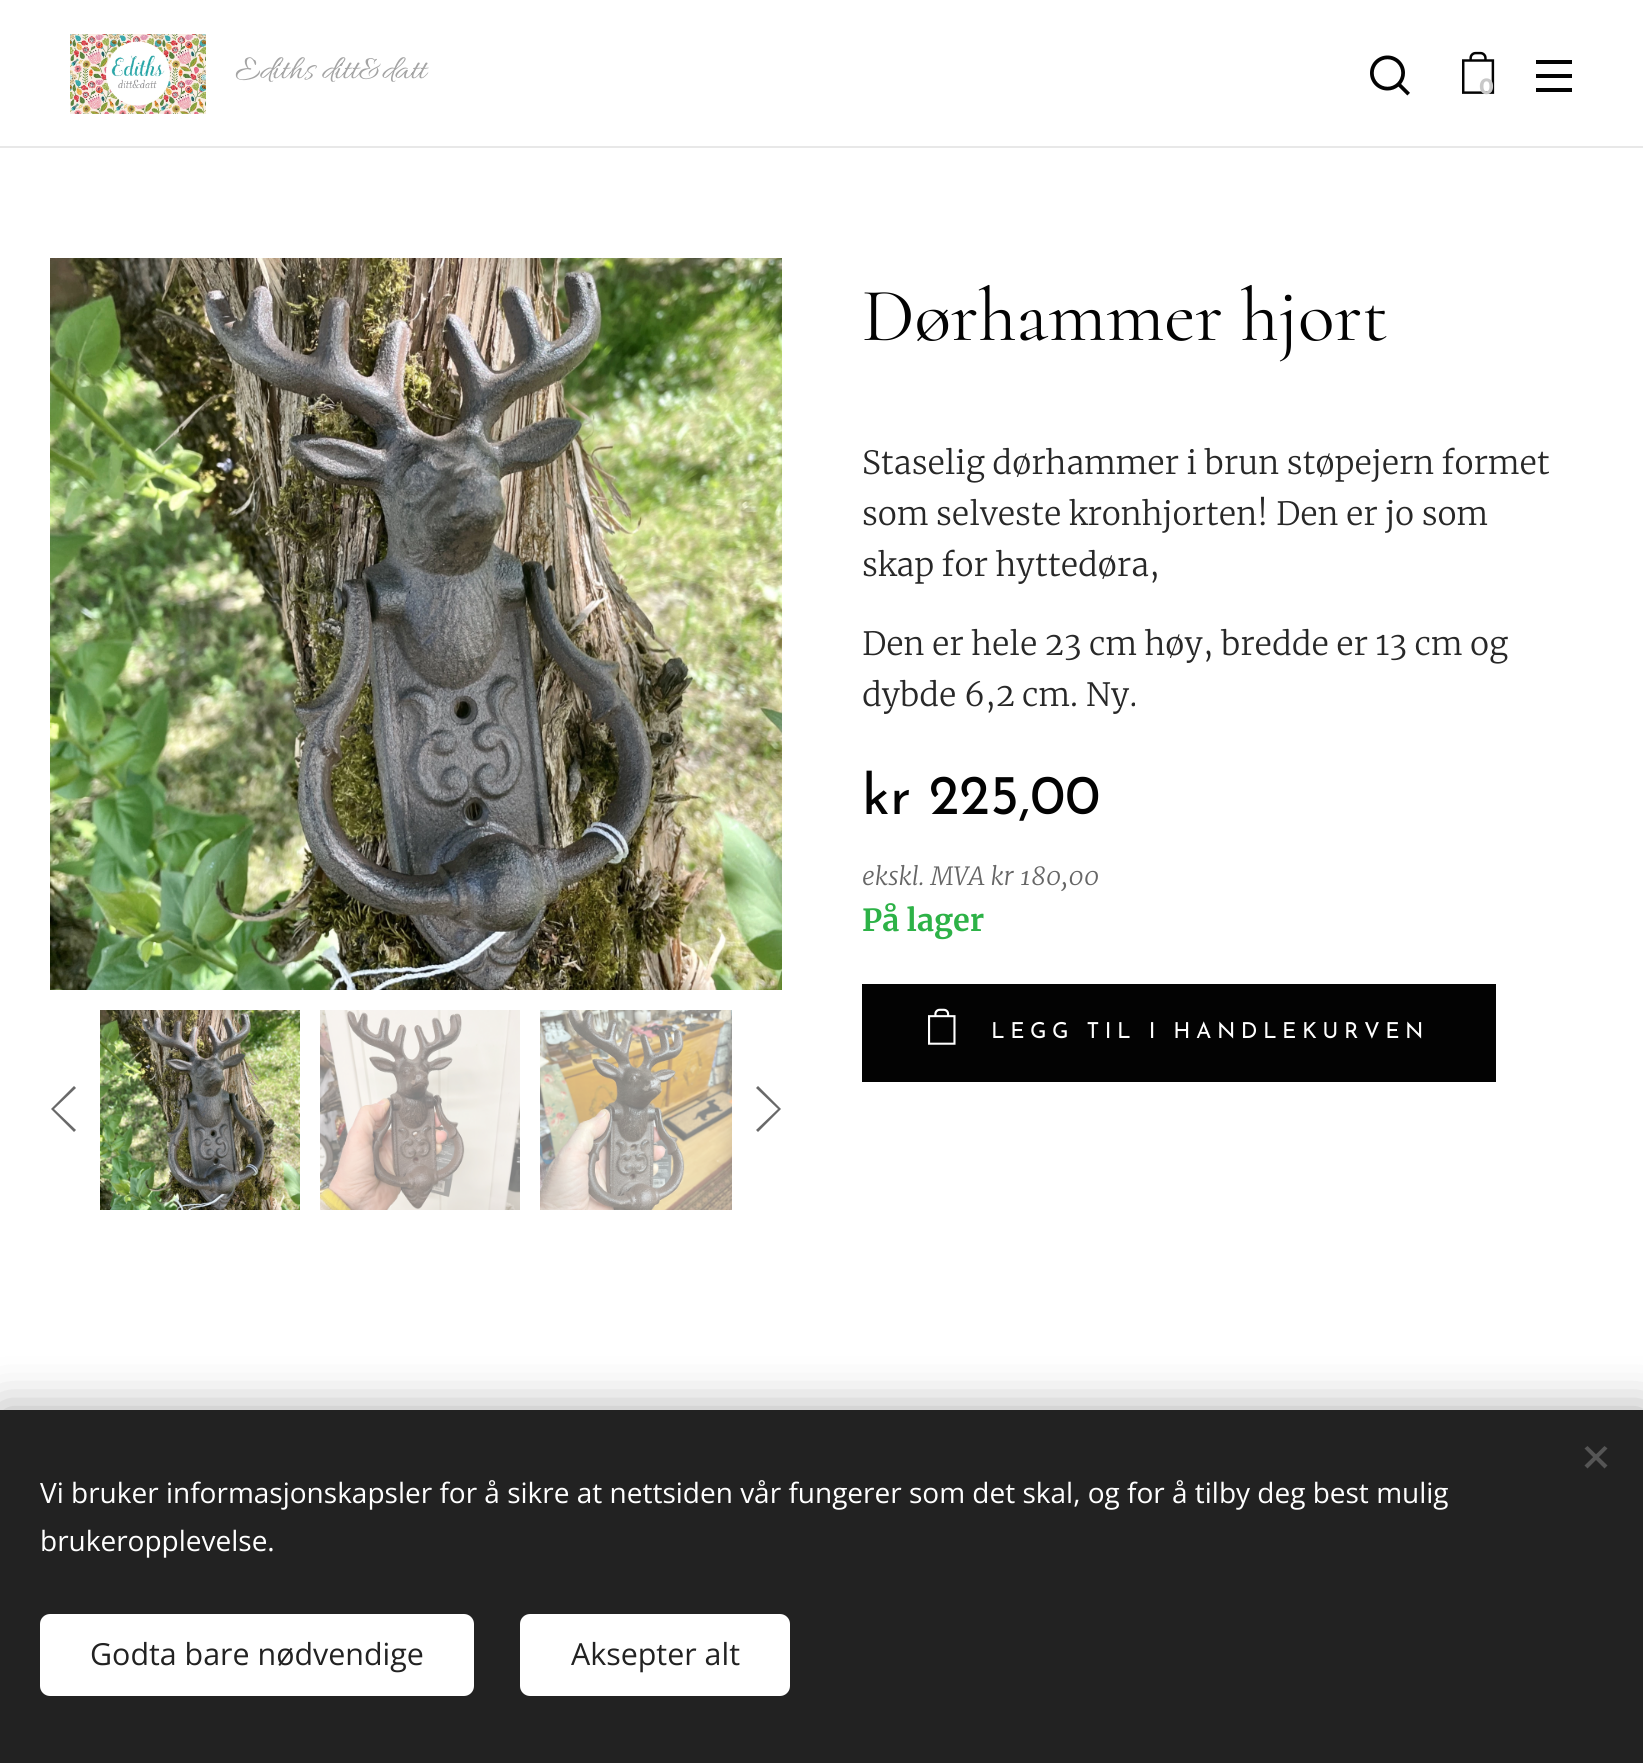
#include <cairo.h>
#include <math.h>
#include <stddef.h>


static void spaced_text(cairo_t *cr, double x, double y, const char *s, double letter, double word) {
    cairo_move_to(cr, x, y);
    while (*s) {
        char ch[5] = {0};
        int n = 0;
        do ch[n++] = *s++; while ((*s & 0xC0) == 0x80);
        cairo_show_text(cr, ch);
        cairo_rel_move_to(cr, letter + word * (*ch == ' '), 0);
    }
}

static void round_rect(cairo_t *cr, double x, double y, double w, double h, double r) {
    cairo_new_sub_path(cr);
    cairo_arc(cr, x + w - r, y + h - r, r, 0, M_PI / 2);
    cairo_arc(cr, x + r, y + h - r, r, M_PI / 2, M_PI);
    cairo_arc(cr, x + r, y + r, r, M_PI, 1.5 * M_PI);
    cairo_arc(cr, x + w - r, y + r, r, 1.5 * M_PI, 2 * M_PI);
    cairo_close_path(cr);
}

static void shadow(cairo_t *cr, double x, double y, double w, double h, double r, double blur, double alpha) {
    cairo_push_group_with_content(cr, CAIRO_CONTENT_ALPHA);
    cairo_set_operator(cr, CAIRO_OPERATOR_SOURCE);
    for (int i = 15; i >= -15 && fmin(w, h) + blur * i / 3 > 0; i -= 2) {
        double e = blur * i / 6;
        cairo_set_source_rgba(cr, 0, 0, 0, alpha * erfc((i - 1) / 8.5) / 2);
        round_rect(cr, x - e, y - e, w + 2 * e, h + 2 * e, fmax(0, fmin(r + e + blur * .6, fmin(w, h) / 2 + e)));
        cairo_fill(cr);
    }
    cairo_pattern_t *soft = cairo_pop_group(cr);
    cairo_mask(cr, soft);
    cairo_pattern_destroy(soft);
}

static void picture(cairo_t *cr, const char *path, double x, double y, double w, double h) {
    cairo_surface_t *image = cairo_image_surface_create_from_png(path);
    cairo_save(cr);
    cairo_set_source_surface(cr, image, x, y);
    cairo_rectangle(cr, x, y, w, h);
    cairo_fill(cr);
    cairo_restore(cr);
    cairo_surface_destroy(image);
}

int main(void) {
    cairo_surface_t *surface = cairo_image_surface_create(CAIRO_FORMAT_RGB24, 1643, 1763);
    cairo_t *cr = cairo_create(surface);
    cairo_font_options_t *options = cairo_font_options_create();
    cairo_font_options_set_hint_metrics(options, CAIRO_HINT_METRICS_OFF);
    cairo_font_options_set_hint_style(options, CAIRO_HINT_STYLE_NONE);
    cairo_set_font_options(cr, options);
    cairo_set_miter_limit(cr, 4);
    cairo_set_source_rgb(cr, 1, 1, 1);
    cairo_paint(cr);
    picture(cr, "img1.png", 70, 34, 136, 80);
    cairo_select_font_face(cr, "Allura", CAIRO_FONT_SLANT_NORMAL, CAIRO_FONT_WEIGHT_NORMAL);
    cairo_set_font_size(cr, 34.5);
    cairo_set_source_rgb(cr, 0.643, 0.643, 0.643);
    cairo_move_to(cr, 235, 78);
    cairo_show_text(cr, "Ediths ditt&datt");
    picture(cr, "img2.png", 1370, 55, 40, 41);
    picture(cr, "img3.png", 1462, 51, 33, 43);
    cairo_select_font_face(cr, "Montserrat", CAIRO_FONT_SLANT_NORMAL, CAIRO_FONT_WEIGHT_BOLD);
    cairo_set_font_size(cr, 22);
    cairo_set_source_rgb(cr, 0.784, 0.784, 0.784);
    cairo_move_to(cr, 1479, 94);
    cairo_show_text(cr, "0");
    cairo_set_source_rgb(cr, 0.012, 0.012, 0.012);
    cairo_rectangle(cr, 1536, 74, 36, 4);
    cairo_fill(cr);
    cairo_rectangle(cr, 1536, 60, 36, 4);
    cairo_fill(cr);
    cairo_rectangle(cr, 1536, 88, 36, 4);
    cairo_fill(cr);
    cairo_set_source_rgb(cr, 0.91, 0.91, 0.91);
    cairo_rectangle(cr, 0, 146, 1643, 2);
    cairo_fill(cr);
    picture(cr, "img4.png", 50, 258, 732, 732);
    cairo_set_source_rgb(cr, 0.412, 0.412, 0.412);
    cairo_new_path(cr);
    cairo_move_to(cr, 74, 1132);
    cairo_line_to(cr, 76, 1130);
    cairo_line_to(cr, 54, 1109);
    cairo_line_to(cr, 76, 1088);
    cairo_line_to(cr, 74, 1086);
    cairo_line_to(cr, 51, 1109);
    cairo_close_path(cr);
    cairo_fill(cr);
    picture(cr, "img5.png", 100, 1010, 200, 200);
    picture(cr, "img6.png", 320, 1010, 200, 200);
    picture(cr, "img7.png", 540, 1010, 192, 200);
    cairo_new_path(cr);
    cairo_move_to(cr, 758, 1086);
    cairo_line_to(cr, 756, 1088);
    cairo_line_to(cr, 778, 1109);
    cairo_line_to(cr, 756, 1130);
    cairo_line_to(cr, 758, 1132);
    cairo_line_to(cr, 781, 1109);
    cairo_close_path(cr);
    cairo_fill(cr);
    cairo_select_font_face(cr, "Cormorant", CAIRO_FONT_SLANT_NORMAL, CAIRO_FONT_WEIGHT_NORMAL);
    cairo_set_font_size(cr, 76);
    cairo_set_source_rgb(cr, 0.012, 0.012, 0.012);
    cairo_move_to(cr, 862, 340);
    cairo_show_text(cr, "Dørhammer hjort");
    cairo_select_font_face(cr, "Merriweather Light", CAIRO_FONT_SLANT_NORMAL, CAIRO_FONT_WEIGHT_NORMAL);
    cairo_set_font_size(cr, 32);
    cairo_set_source_rgb(cr, 0.157, 0.157, 0.157);
    cairo_move_to(cr, 862, 474);
    cairo_show_text(cr, "Staselig dørhammer i brun støpejern formet");
    cairo_move_to(cr, 862, 525);
    cairo_show_text(cr, "som selveste kronhjorten! Den er jo som");
    cairo_move_to(cr, 862, 576);
    cairo_show_text(cr, "skap for hyttedøra,");
    cairo_move_to(cr, 862, 655);
    cairo_show_text(cr, "Den er hele 23 cm høy, bredde er 13 cm og");
    cairo_move_to(cr, 862, 706);
    cairo_show_text(cr, "dybde 6,2 cm. Ny.");
    cairo_select_font_face(cr, "Josefin Sans", CAIRO_FONT_SLANT_NORMAL, CAIRO_FONT_WEIGHT_NORMAL);
    cairo_set_font_size(cr, 56);
    cairo_set_source_rgb(cr, 0.012, 0.012, 0.012);
    cairo_move_to(cr, 862, 814);
    cairo_show_text(cr, "kr 225,00");
    cairo_select_font_face(cr, "Merriweather Light", CAIRO_FONT_SLANT_ITALIC, CAIRO_FONT_WEIGHT_NORMAL);
    cairo_set_font_size(cr, 25);
    cairo_set_source_rgb(cr, 0.4, 0.4, 0.4);
    cairo_move_to(cr, 862, 885);
    cairo_show_text(cr, "ekskl. MVA kr 180,00");
    cairo_select_font_face(cr, "Merriweather", CAIRO_FONT_SLANT_NORMAL, CAIRO_FONT_WEIGHT_BOLD);
    cairo_set_font_size(cr, 30.4);
    cairo_set_source_rgb(cr, 0.176, 0.698, 0.278);
    cairo_move_to(cr, 862, 931);
    cairo_show_text(cr, "På lager");
    cairo_set_source_rgb(cr, 0.012, 0.012, 0.012);
    cairo_rectangle(cr, 862, 984, 634, 98);
    cairo_fill(cr);
    picture(cr, "img8.png", 928, 1008, 28, 37);
    cairo_select_font_face(cr, "Josefin Sans", CAIRO_FONT_SLANT_NORMAL, CAIRO_FONT_WEIGHT_NORMAL);
    cairo_set_font_size(cr, 22);
    cairo_set_source_rgb(cr, 1, 1, 1);
    spaced_text(cr, 991, 1038, "LEGG TIL I HANDLEKURVEN", 5.5, 0);
    cairo_set_source_rgb(cr, 0, 0, 0);
    shadow(cr, 0, 1410, 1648, 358, 0, 25, 0.33);
    cairo_set_source_rgb(cr, 0.133, 0.133, 0.133);
    cairo_rectangle(cr, 0, 1410, 1643, 353);
    cairo_fill(cr);
    cairo_set_source_rgb(cr, 0.333, 0.333, 0.333);
    cairo_new_path(cr);
    cairo_move_to(cr, 1584.5, 1465.5);
    cairo_line_to(cr, 1604.5, 1446);
    cairo_line_to(cr, 1607.5, 1448.5);
    cairo_line_to(cr, 1587.5, 1468.5);
    cairo_close_path(cr);
    cairo_fill(cr);
    cairo_new_path(cr);
    cairo_move_to(cr, 1587.5, 1446);
    cairo_line_to(cr, 1607.5, 1465.5);
    cairo_line_to(cr, 1604.5, 1468.5);
    cairo_line_to(cr, 1584.5, 1448.5);
    cairo_close_path(cr);
    cairo_fill(cr);
    cairo_select_font_face(cr, "Open Sans", CAIRO_FONT_SLANT_NORMAL, CAIRO_FONT_WEIGHT_NORMAL);
    cairo_set_font_size(cr, 28);
    cairo_set_source_rgb(cr, 1, 1, 1);
    cairo_move_to(cr, 40, 1503);
    cairo_show_text(cr, "Vi bruker informasjonskapsler for å sikre at nettsiden vår fungerer som det skal, og for å tilby deg best mulig");
    cairo_move_to(cr, 40, 1551);
    cairo_show_text(cr, "brukeropplevelse.");
    round_rect(cr, 40, 1614, 434, 82, 10);
    cairo_fill(cr);
    cairo_set_font_size(cr, 30.4);
    cairo_set_source_rgb(cr, 0.133, 0.133, 0.133);
    cairo_move_to(cr, 90, 1665);
    cairo_show_text(cr, "Godta bare nødvendige");
    cairo_set_source_rgb(cr, 1, 1, 1);
    round_rect(cr, 520, 1614, 270, 82, 10);
    cairo_fill(cr);
    cairo_set_source_rgb(cr, 0.133, 0.133, 0.133);
    cairo_move_to(cr, 571, 1665);
    cairo_show_text(cr, "Aksepter alt");
    cairo_surface_write_to_png(surface, "page.png");
    cairo_font_options_destroy(options);
    cairo_destroy(cr);
    cairo_surface_destroy(surface);
    return 0;
}
